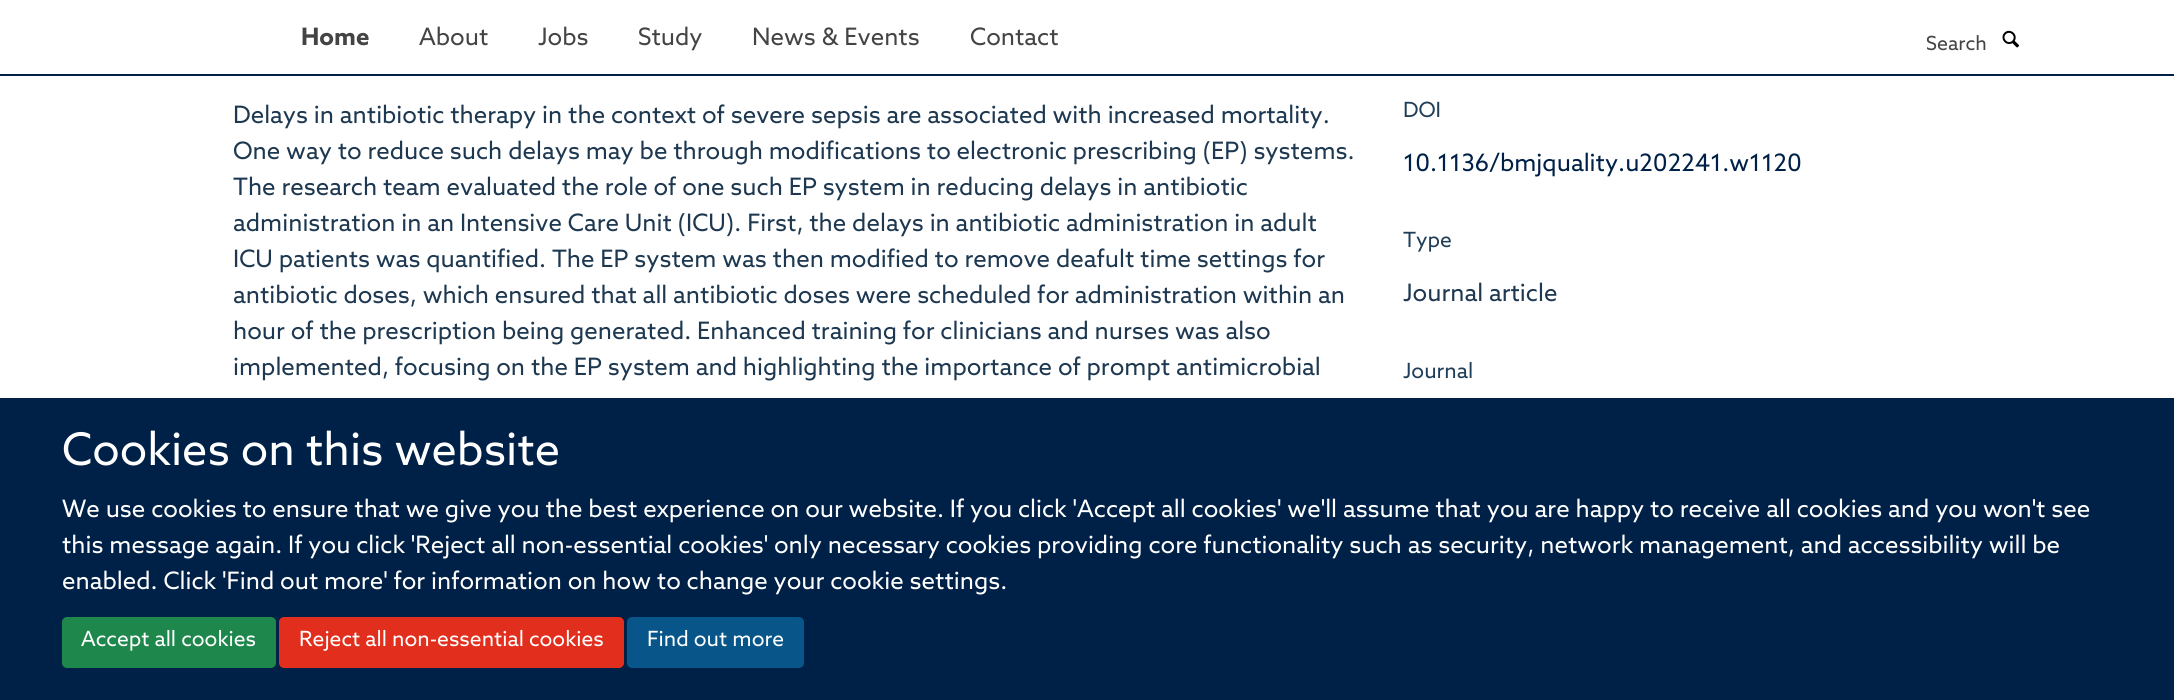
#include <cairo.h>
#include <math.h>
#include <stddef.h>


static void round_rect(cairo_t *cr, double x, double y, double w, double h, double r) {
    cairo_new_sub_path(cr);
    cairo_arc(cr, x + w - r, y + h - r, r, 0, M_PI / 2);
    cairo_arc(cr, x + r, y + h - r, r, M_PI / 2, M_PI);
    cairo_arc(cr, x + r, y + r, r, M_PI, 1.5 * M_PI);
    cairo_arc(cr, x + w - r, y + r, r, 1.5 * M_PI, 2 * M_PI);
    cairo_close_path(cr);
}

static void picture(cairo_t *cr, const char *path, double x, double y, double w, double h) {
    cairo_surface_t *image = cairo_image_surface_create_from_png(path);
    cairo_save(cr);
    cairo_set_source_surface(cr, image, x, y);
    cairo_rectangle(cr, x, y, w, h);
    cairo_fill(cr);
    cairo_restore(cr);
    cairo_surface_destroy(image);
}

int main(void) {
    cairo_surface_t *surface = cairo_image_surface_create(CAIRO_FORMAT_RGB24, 2174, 700);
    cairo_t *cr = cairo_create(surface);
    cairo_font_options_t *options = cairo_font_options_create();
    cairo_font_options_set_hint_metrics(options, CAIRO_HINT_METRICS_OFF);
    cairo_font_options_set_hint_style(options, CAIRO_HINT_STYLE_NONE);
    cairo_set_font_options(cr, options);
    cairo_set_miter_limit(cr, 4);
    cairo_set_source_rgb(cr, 1, 1, 1);
    cairo_paint(cr);
    cairo_set_source_rgb(cr, 0, 0.129, 0.278);
    cairo_rectangle(cr, 0, 74, 2174, 2);
    cairo_fill(cr);
    cairo_select_font_face(cr, "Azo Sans", CAIRO_FONT_SLANT_NORMAL, CAIRO_FONT_WEIGHT_BOLD);
    cairo_set_font_size(cr, 24);
    cairo_set_source_rgb(cr, 0.267, 0.267, 0.267);
    cairo_move_to(cr, 301, 45);
    cairo_show_text(cr, "Home");
    cairo_select_font_face(cr, "Azo Sans", CAIRO_FONT_SLANT_NORMAL, CAIRO_FONT_WEIGHT_NORMAL);
    cairo_move_to(cr, 419, 45);
    cairo_show_text(cr, "About");
    cairo_move_to(cr, 538, 45);
    cairo_show_text(cr, "Jobs");
    cairo_move_to(cr, 638, 45);
    cairo_show_text(cr, "Study");
    cairo_move_to(cr, 752, 45);
    cairo_show_text(cr, "News & Events");
    cairo_move_to(cr, 970, 45);
    cairo_show_text(cr, "Contact");
    cairo_set_font_size(cr, 19.5);
    cairo_move_to(cr, 1926, 50);
    cairo_show_text(cr, "Search");
    picture(cr, "img1.png", 2002, 30, 17, 18);
    cairo_set_font_size(cr, 24);
    cairo_set_source_rgb(cr, 0.114, 0.22, 0.314);
    cairo_move_to(cr, 233, 123);
    cairo_show_text(cr, "Delays in antibiotic therapy in the context of severe sepsis are associated with increased mortality.");
    cairo_move_to(cr, 233, 159);
    cairo_show_text(cr, "One way to reduce such delays may be through modifications to electronic prescribing (EP) systems.");
    cairo_move_to(cr, 233, 195);
    cairo_show_text(cr, "The research team evaluated the role of one such EP system in reducing delays in antibiotic");
    cairo_move_to(cr, 233, 231);
    cairo_show_text(cr, "administration in an Intensive Care Unit (ICU). First, the delays in antibiotic administration in adult");
    cairo_move_to(cr, 233, 267);
    cairo_show_text(cr, "ICU patients was quantified. The EP system was then modified to remove deafult time settings for");
    cairo_move_to(cr, 233, 303);
    cairo_show_text(cr, "antibiotic doses, which ensured that all antibiotic doses were scheduled for administration within an");
    cairo_move_to(cr, 233, 339);
    cairo_show_text(cr, "hour of the prescription being generated. Enhanced training for clinicians and nurses was also");
    cairo_move_to(cr, 233, 375);
    cairo_show_text(cr, "implemented, focusing on the EP system and highlighting the importance of prompt antimicrobial");
    cairo_set_font_size(cr, 21);
    cairo_set_source_rgb(cr, 0.125, 0.243, 0.345);
    cairo_move_to(cr, 1403, 117);
    cairo_show_text(cr, "DOI");
    cairo_set_font_size(cr, 24);
    cairo_set_source_rgb(cr, 0, 0.129, 0.278);
    cairo_move_to(cr, 1403, 171);
    cairo_show_text(cr, "10.1136/bmjquality.u202241.w1120");
    cairo_set_font_size(cr, 21);
    cairo_set_source_rgb(cr, 0.125, 0.243, 0.345);
    cairo_move_to(cr, 1403, 247);
    cairo_show_text(cr, "Type");
    cairo_set_font_size(cr, 24);
    cairo_set_source_rgb(cr, 0.114, 0.22, 0.314);
    cairo_move_to(cr, 1403, 301);
    cairo_show_text(cr, "Journal article");
    cairo_set_font_size(cr, 21);
    cairo_set_source_rgb(cr, 0.125, 0.243, 0.345);
    cairo_move_to(cr, 1403, 378);
    cairo_show_text(cr, "Journal");
    cairo_set_source_rgb(cr, 0, 0.129, 0.278);
    cairo_rectangle(cr, 0, 398, 2174, 302);
    cairo_fill(cr);
    cairo_set_font_size(cr, 45);
    cairo_set_source_rgb(cr, 1, 1, 1);
    cairo_move_to(cr, 62, 465);
    cairo_show_text(cr, "Cookies on this website");
    cairo_set_font_size(cr, 24);
    cairo_move_to(cr, 62, 517);
    cairo_show_text(cr, "We use cookies to ensure that we give you the best experience on our website. If you click 'Accept all cookies' we'll assume that you are happy to receive all cookies and you won't see");
    cairo_move_to(cr, 62, 553);
    cairo_show_text(cr, "this message again. If you click 'Reject all non-essential cookies' only necessary cookies providing core functionality such as security, network management, and accessibility will be");
    cairo_move_to(cr, 62, 589);
    cairo_show_text(cr, "enabled. Click 'Find out more' for information on how to change your cookie settings.");
    cairo_set_source_rgb(cr, 0.118, 0.529, 0.294);
    round_rect(cr, 63, 618, 212, 49, 4);
    cairo_fill_preserve(cr);
    cairo_stroke(cr);
    cairo_set_font_size(cr, 21);
    cairo_set_source_rgb(cr, 1, 1, 1);
    cairo_move_to(cr, 81, 646);
    cairo_show_text(cr, "Accept all cookies");
    cairo_set_source_rgb(cr, 0.886, 0.18, 0.11);
    round_rect(cr, 280, 618, 343, 49, 4);
    cairo_fill_preserve(cr);
    cairo_stroke(cr);
    cairo_set_source_rgb(cr, 1, 1, 1);
    cairo_move_to(cr, 299, 646);
    cairo_show_text(cr, "Reject all non-essential cookies");
    cairo_set_source_rgb(cr, 0.031, 0.333, 0.537);
    round_rect(cr, 628, 618, 175, 49, 4);
    cairo_fill_preserve(cr);
    cairo_stroke(cr);
    cairo_set_source_rgb(cr, 1, 1, 1);
    cairo_move_to(cr, 647, 646);
    cairo_show_text(cr, "Find out more");
    cairo_surface_write_to_png(surface, "page.png");
    cairo_font_options_destroy(options);
    cairo_destroy(cr);
    cairo_surface_destroy(surface);
    return 0;
}
